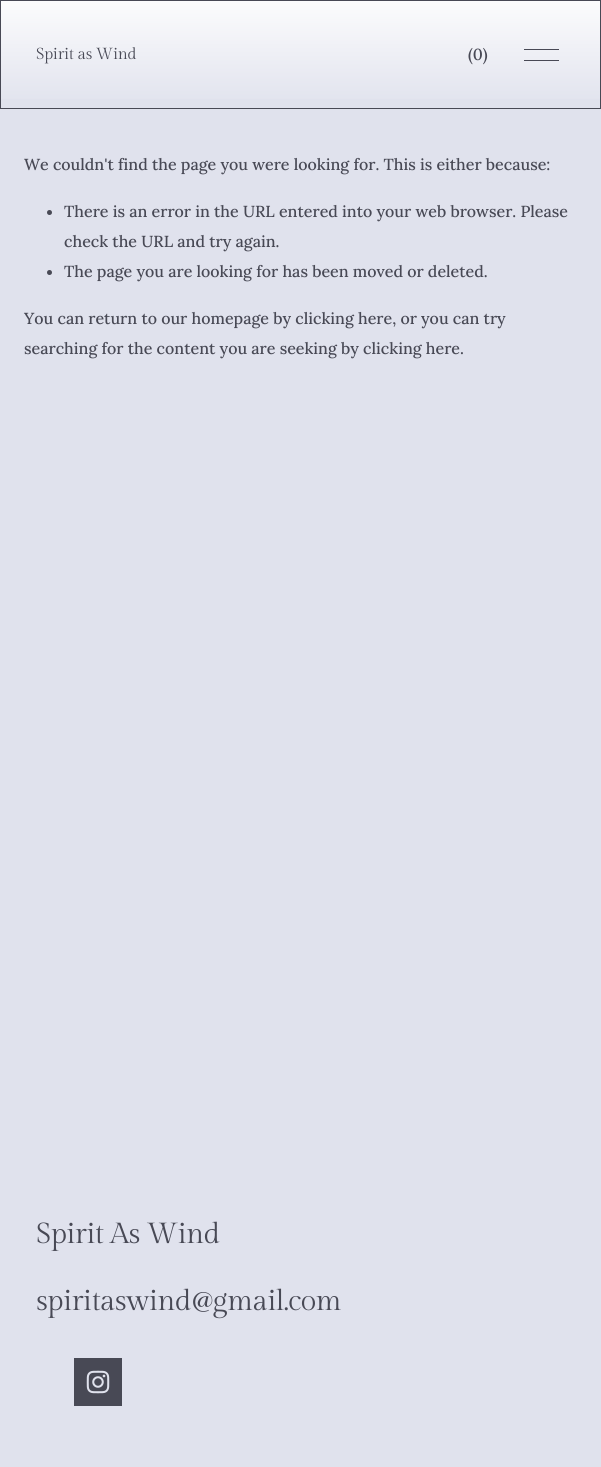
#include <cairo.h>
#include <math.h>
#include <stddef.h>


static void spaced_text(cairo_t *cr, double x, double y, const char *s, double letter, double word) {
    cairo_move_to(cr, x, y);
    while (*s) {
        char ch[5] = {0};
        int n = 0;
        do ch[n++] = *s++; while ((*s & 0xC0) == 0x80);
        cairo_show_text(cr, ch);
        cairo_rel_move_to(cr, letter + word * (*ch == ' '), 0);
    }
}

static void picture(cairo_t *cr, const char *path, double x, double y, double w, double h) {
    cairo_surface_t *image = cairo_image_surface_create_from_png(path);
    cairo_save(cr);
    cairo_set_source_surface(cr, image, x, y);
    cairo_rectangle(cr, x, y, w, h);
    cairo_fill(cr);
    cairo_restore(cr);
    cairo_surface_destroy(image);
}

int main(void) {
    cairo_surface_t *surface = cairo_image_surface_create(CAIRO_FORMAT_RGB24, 601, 1467);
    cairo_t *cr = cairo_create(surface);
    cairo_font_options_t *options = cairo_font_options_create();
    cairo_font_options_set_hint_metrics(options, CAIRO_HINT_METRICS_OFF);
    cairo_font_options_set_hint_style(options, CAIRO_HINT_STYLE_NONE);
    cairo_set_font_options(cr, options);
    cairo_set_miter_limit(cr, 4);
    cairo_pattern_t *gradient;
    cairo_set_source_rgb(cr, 0.878, 0.886, 0.929);
    cairo_paint(cr);
    gradient = cairo_pattern_create_linear(301, 0, 301, 109);
    cairo_pattern_add_color_stop_rgba(gradient, 0, 0.988, 0.988, 0.992, 1);
    cairo_pattern_add_color_stop_rgba(gradient, 1, 0.878, 0.886, 0.929, 1);
    cairo_set_source(cr, gradient);
    cairo_pattern_destroy(gradient);
    cairo_rectangle(cr, 1, 1, 599, 98);
    cairo_fill(cr);
    cairo_rectangle(cr, 0.5, 0.5, 600, 108);
    cairo_set_source_rgb(cr, 0.282, 0.286, 0.333);
    cairo_set_line_width(cr, 1);
    cairo_stroke(cr);
    cairo_select_font_face(cr, "Gilda Display", CAIRO_FONT_SLANT_NORMAL, CAIRO_FONT_WEIGHT_NORMAL);
    cairo_set_font_size(cr, 16);
    spaced_text(cr, 36, 59, "Spirit as Wind", -0.25, 0);
    cairo_select_font_face(cr, "Lora Medium", CAIRO_FONT_SLANT_NORMAL, CAIRO_FONT_WEIGHT_NORMAL);
    cairo_move_to(cr, 468, 60);
    cairo_show_text(cr, "(0)");
    cairo_rectangle(cr, 524, 49, 35, 1);
    cairo_fill(cr);
    cairo_rectangle(cr, 524, 60, 35, 1);
    cairo_fill(cr);
    cairo_move_to(cr, 24, 170);
    cairo_show_text(cr, "We couldn't find the page you were looking for. This is either because:");
    cairo_new_path(cr);
    cairo_arc(cr, 49.5, 212.5, 2.5, 0, 2 * M_PI);
    cairo_fill(cr);
    cairo_move_to(cr, 64, 217);
    cairo_show_text(cr, "There is an error in the URL entered into your web browser. Please");
    cairo_move_to(cr, 64, 247);
    cairo_show_text(cr, "check the URL and try again.");
    cairo_new_path(cr);
    cairo_arc(cr, 49.5, 272.5, 2.5, 0, 2 * M_PI);
    cairo_fill(cr);
    cairo_move_to(cr, 64, 277);
    cairo_show_text(cr, "The page you are looking for has been moved or deleted.");
    cairo_move_to(cr, 24, 324);
    cairo_show_text(cr, "You can return to our homepage by clicking here, or you can try");
    cairo_move_to(cr, 24, 354);
    cairo_show_text(cr, "searching for the content you are seeking by clicking here.");
    cairo_select_font_face(cr, "Gilda Display", CAIRO_FONT_SLANT_NORMAL, CAIRO_FONT_WEIGHT_NORMAL);
    cairo_set_font_size(cr, 29);
    spaced_text(cr, 36, 1243, "Spirit As Wind", -0.6, 0);
    spaced_text(cr, 36, 1310, "spiritaswind@gmail.com", -0.6, 0);
    cairo_rectangle(cr, 74, 1358, 48, 48);
    cairo_fill(cr);
    picture(cr, "img1.png", 86, 1370, 24, 24);
    cairo_surface_write_to_png(surface, "page.png");
    cairo_font_options_destroy(options);
    cairo_destroy(cr);
    cairo_surface_destroy(surface);
    return 0;
}
